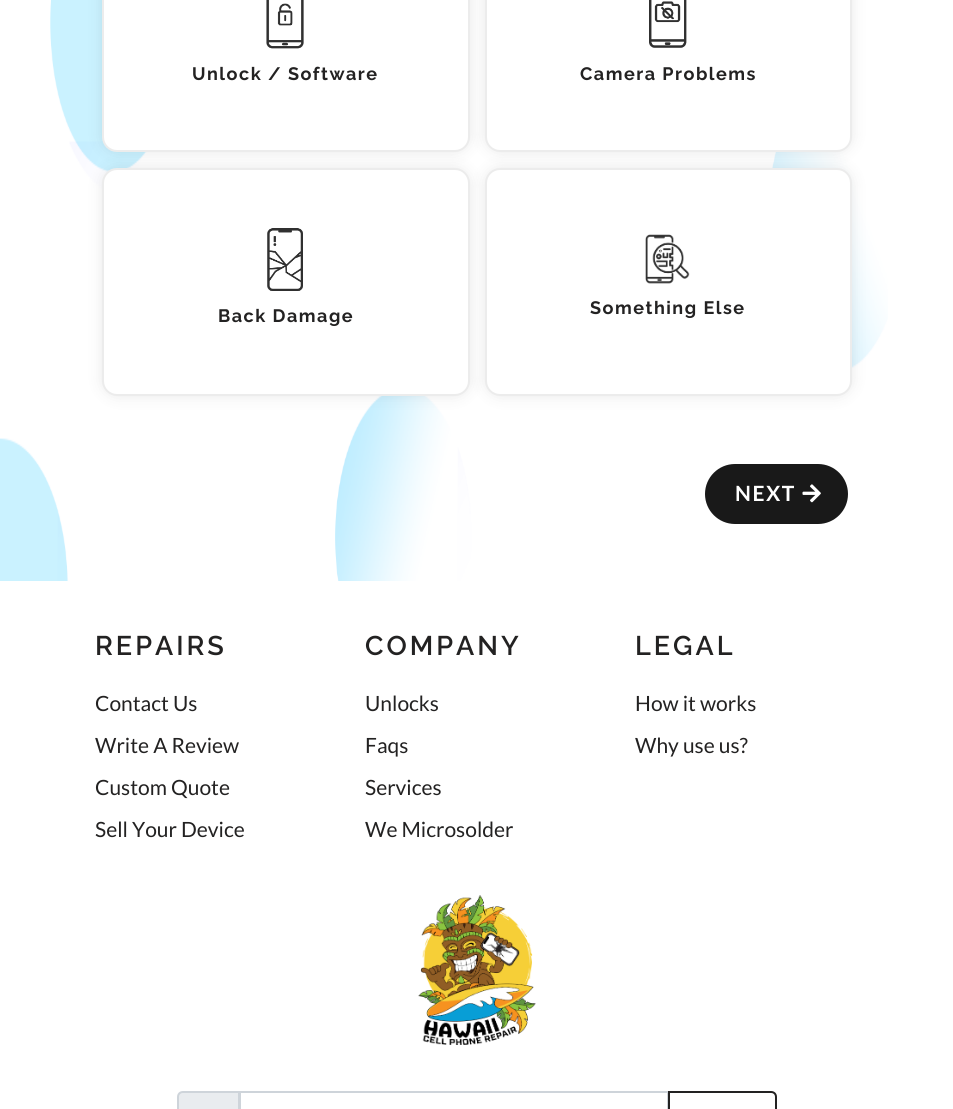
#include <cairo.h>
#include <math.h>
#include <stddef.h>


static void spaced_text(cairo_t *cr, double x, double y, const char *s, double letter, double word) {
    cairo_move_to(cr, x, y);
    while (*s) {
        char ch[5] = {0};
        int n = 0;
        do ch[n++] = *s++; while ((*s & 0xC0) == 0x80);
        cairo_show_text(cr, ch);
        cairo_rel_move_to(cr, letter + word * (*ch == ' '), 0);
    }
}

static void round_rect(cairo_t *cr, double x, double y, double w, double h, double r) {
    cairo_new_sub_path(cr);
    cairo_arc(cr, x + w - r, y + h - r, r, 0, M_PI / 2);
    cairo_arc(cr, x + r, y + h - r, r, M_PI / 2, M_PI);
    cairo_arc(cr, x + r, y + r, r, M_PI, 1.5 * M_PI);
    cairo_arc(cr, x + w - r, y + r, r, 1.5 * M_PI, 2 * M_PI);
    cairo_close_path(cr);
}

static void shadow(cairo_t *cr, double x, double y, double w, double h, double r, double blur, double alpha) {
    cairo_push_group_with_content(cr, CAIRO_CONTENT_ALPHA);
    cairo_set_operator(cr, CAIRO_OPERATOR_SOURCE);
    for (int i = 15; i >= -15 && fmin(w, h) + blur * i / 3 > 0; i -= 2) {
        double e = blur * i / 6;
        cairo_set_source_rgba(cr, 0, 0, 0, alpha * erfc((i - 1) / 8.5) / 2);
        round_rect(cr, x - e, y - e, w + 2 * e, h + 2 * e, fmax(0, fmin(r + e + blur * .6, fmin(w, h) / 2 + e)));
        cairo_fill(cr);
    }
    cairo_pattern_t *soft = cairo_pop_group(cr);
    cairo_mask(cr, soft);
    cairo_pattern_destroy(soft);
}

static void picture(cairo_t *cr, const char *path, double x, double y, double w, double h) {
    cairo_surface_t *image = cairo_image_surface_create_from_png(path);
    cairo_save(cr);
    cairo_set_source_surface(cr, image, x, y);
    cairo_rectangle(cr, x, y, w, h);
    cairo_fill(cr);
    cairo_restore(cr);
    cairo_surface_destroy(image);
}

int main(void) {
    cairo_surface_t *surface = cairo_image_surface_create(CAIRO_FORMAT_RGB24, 953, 1109);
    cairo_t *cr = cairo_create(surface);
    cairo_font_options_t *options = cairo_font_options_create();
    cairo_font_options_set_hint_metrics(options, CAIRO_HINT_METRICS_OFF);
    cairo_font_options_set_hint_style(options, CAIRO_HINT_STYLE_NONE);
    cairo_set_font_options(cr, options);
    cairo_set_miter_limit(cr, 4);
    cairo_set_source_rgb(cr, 1, 1, 1);
    cairo_paint(cr);
    picture(cr, "img1.png", 0, 0, 888, 581);
    cairo_set_source_rgb(cr, 0, 0, 0);
    shadow(cr, 102, -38, 368, 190, 15, 7.5, 0.09);
    cairo_set_source_rgb(cr, 1, 1, 1);
    round_rect(cr, 103, -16, 366, 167, 14);
    cairo_fill_preserve(cr);
    cairo_set_source_rgb(cr, 0.925, 0.925, 0.925);
    cairo_stroke(cr);
    picture(cr, "img2.png", 266, 0, 38, 49);
    cairo_select_font_face(cr, "Raleway", CAIRO_FONT_SLANT_NORMAL, CAIRO_FONT_WEIGHT_BOLD);
    cairo_set_font_size(cr, 18);
    cairo_set_source_rgb(cr, 0.137, 0.133, 0.133);
    spaced_text(cr, 192, 80, "Unlock / Software", 1.5, 0);
    cairo_set_source_rgb(cr, 0, 0, 0);
    shadow(cr, 485, -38, 367, 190, 15, 7.5, 0.09);
    cairo_set_source_rgb(cr, 1, 1, 1);
    round_rect(cr, 486, -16, 365, 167, 14);
    cairo_fill_preserve(cr);
    cairo_set_source_rgb(cr, 0.925, 0.925, 0.925);
    cairo_stroke(cr);
    picture(cr, "img3.png", 649, 0, 38, 48);
    cairo_set_source_rgb(cr, 0.137, 0.133, 0.133);
    spaced_text(cr, 580, 80, "Camera Problems", 1.5, 0);
    cairo_set_source_rgb(cr, 0, 0, 0);
    shadow(cr, 102, 168, 368, 228, 15, 7.5, 0.09);
    cairo_set_source_rgb(cr, 1, 1, 1);
    round_rect(cr, 103, 169, 366, 226, 14);
    cairo_fill_preserve(cr);
    cairo_set_source_rgb(cr, 0.925, 0.925, 0.925);
    cairo_stroke(cr);
    picture(cr, "img4.png", 267, 228, 36, 63);
    cairo_set_source_rgb(cr, 0.137, 0.133, 0.133);
    spaced_text(cr, 218, 322, "Back Damage", 1.5, 0);
    cairo_set_source_rgb(cr, 0, 0, 0);
    shadow(cr, 485, 168, 367, 228, 15, 7.5, 0.09);
    cairo_set_source_rgb(cr, 1, 1, 1);
    round_rect(cr, 486, 169, 365, 226, 14);
    cairo_fill_preserve(cr);
    cairo_set_source_rgb(cr, 0.925, 0.925, 0.925);
    cairo_stroke(cr);
    picture(cr, "img5.png", 645, 234, 45, 50);
    cairo_set_source_rgb(cr, 0.137, 0.133, 0.133);
    spaced_text(cr, 590, 314, "Something Else", 1.5, 0);
    cairo_set_source_rgb(cr, 0.098, 0.098, 0.098);
    round_rect(cr, 705, 464, 143, 60, 30);
    cairo_fill(cr);
    cairo_select_font_face(cr, "Lato", CAIRO_FONT_SLANT_NORMAL, CAIRO_FONT_WEIGHT_BOLD);
    cairo_set_font_size(cr, 21);
    cairo_set_source_rgb(cr, 1, 1, 1);
    spaced_text(cr, 735, 501, "NEXT", 1.5, 0);
    picture(cr, "img6.png", 802, 484, 19, 19);
    cairo_select_font_face(cr, "Raleway SemiBold", CAIRO_FONT_SLANT_NORMAL, CAIRO_FONT_WEIGHT_NORMAL);
    cairo_set_font_size(cr, 27);
    cairo_set_source_rgb(cr, 0.137, 0.133, 0.133);
    spaced_text(cr, 95, 655, "REPAIRS", 3, 0);
    cairo_select_font_face(cr, "Lato", CAIRO_FONT_SLANT_NORMAL, CAIRO_FONT_WEIGHT_NORMAL);
    cairo_set_font_size(cr, 21);
    cairo_move_to(cr, 95, 711);
    cairo_show_text(cr, "Contact Us");
    cairo_move_to(cr, 95, 753);
    cairo_show_text(cr, "Write A Review");
    cairo_move_to(cr, 95, 795);
    cairo_show_text(cr, "Custom Quote");
    cairo_move_to(cr, 95, 837);
    cairo_show_text(cr, "Sell Your Device");
    cairo_select_font_face(cr, "Raleway SemiBold", CAIRO_FONT_SLANT_NORMAL, CAIRO_FONT_WEIGHT_NORMAL);
    cairo_set_font_size(cr, 27);
    spaced_text(cr, 365, 655, "COMPANY", 3, 0);
    cairo_select_font_face(cr, "Lato", CAIRO_FONT_SLANT_NORMAL, CAIRO_FONT_WEIGHT_NORMAL);
    cairo_set_font_size(cr, 21);
    cairo_move_to(cr, 365, 711);
    cairo_show_text(cr, "Unlocks");
    cairo_move_to(cr, 365, 753);
    cairo_show_text(cr, "Faqs");
    cairo_move_to(cr, 365, 795);
    cairo_show_text(cr, "Services");
    cairo_move_to(cr, 365, 837);
    cairo_show_text(cr, "We Microsolder");
    cairo_select_font_face(cr, "Raleway SemiBold", CAIRO_FONT_SLANT_NORMAL, CAIRO_FONT_WEIGHT_NORMAL);
    cairo_set_font_size(cr, 27);
    spaced_text(cr, 635, 655, "LEGAL", 3, 0);
    cairo_select_font_face(cr, "Lato", CAIRO_FONT_SLANT_NORMAL, CAIRO_FONT_WEIGHT_NORMAL);
    cairo_set_font_size(cr, 21);
    cairo_move_to(cr, 635, 711);
    cairo_show_text(cr, "How it works");
    cairo_move_to(cr, 635, 753);
    cairo_show_text(cr, "Why use us?");
    picture(cr, "img7.png", 418, 895, 118, 150);
    cairo_set_source_rgb(cr, 0.914, 0.925, 0.937);
    cairo_new_path(cr);
    cairo_move_to(cr, 183, 1092);
    cairo_line_to(cr, 239, 1092);
    cairo_line_to(cr, 239, 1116);
    cairo_line_to(cr, 183, 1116);
    cairo_curve_to(cr, 180, 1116, 178, 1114, 178, 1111);
    cairo_line_to(cr, 178, 1097);
    cairo_curve_to(cr, 178, 1094, 180, 1092, 183, 1092);
    cairo_close_path(cr);
    cairo_fill_preserve(cr);
    cairo_set_source_rgb(cr, 0.808, 0.831, 0.855);
    cairo_stroke(cr);
    cairo_rectangle(cr, 240, 1092, 428, 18);
    cairo_stroke(cr);
    cairo_set_source_rgb(cr, 1, 1, 1);
    cairo_new_path(cr);
    cairo_move_to(cr, 669, 1092);
    cairo_line_to(cr, 771, 1092);
    cairo_curve_to(cr, 774, 1092, 776, 1094, 776, 1097);
    cairo_line_to(cr, 776, 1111);
    cairo_curve_to(cr, 776, 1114, 774, 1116, 771, 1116);
    cairo_line_to(cr, 669, 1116);
    cairo_close_path(cr);
    cairo_fill_preserve(cr);
    cairo_set_source_rgb(cr, 0.137, 0.133, 0.133);
    cairo_stroke(cr);
    cairo_surface_write_to_png(surface, "page.png");
    cairo_font_options_destroy(options);
    cairo_destroy(cr);
    cairo_surface_destroy(surface);
    return 0;
}
